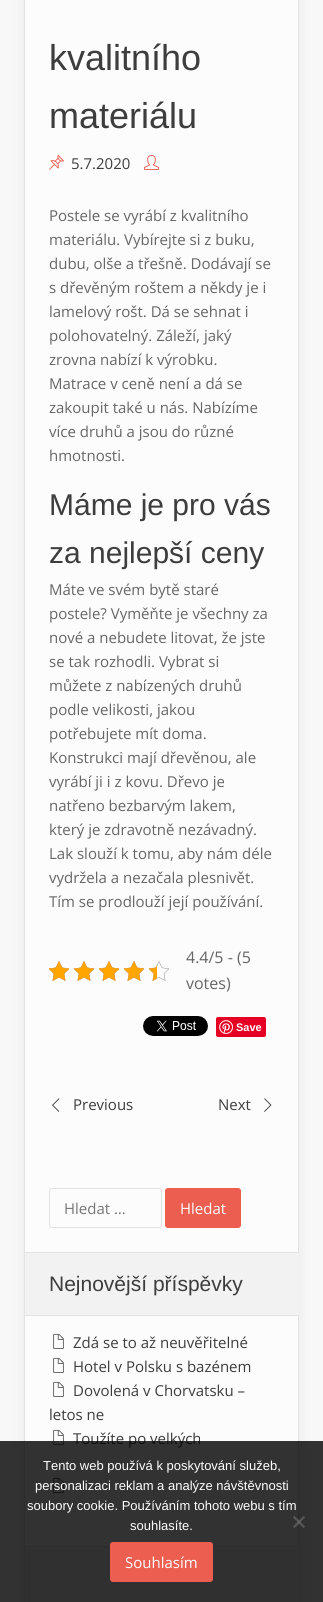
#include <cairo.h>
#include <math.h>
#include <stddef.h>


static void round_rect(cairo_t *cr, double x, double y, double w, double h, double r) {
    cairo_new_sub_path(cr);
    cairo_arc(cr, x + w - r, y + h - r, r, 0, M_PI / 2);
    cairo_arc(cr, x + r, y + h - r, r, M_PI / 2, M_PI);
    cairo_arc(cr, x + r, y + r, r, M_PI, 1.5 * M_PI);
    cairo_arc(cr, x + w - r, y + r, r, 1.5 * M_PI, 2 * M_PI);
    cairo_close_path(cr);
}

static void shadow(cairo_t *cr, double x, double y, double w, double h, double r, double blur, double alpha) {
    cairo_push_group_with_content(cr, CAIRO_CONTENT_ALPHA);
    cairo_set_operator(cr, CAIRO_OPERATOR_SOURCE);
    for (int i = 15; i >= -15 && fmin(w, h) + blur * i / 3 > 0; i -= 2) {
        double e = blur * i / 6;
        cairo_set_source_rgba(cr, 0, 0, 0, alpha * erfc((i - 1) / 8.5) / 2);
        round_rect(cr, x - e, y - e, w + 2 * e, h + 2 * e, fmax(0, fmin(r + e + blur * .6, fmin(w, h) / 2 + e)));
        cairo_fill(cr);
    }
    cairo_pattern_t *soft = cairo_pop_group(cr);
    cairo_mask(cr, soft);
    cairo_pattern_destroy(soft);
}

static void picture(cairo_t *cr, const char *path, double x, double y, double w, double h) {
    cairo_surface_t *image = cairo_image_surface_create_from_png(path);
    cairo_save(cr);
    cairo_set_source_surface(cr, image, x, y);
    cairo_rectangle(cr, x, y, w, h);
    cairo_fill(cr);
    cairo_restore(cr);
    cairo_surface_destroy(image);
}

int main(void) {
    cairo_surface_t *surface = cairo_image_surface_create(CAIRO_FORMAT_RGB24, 323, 1602);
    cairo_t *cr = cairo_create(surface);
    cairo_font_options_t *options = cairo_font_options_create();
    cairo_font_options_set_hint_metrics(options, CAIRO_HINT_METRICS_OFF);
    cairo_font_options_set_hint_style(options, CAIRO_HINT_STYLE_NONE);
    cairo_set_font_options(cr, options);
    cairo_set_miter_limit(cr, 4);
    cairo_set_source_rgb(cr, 0.969, 0.969, 0.969);
    cairo_paint(cr);
    cairo_set_source_rgb(cr, 0, 0, 0);
    shadow(cr, 24, -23, 275, 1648, 0, 7.5, 0.07);
    cairo_set_source_rgb(cr, 0.988, 0.988, 0.988);
    cairo_rectangle(cr, 25, 0, 273, 1546);
    cairo_fill(cr);
    cairo_rectangle(cr, 24.5, -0.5, 274, 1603);
    cairo_set_source_rgb(cr, 0.89, 0.89, 0.89);
    cairo_set_line_width(cr, 1);
    cairo_stroke(cr);
    cairo_select_font_face(cr, "Liberation Sans", CAIRO_FONT_SLANT_NORMAL, CAIRO_FONT_WEIGHT_NORMAL);
    cairo_set_font_size(cr, 36);
    cairo_set_source_rgb(cr, 0.239, 0.239, 0.239);
    cairo_move_to(cr, 49, 70);
    cairo_show_text(cr, "kvalitního");
    cairo_move_to(cr, 49, 128);
    cairo_show_text(cr, "materiálu");
    picture(cr, "img1.png", 49, 155, 15, 15);
    cairo_select_font_face(cr, "Open Sans", CAIRO_FONT_SLANT_NORMAL, CAIRO_FONT_WEIGHT_NORMAL);
    cairo_set_font_size(cr, 15);
    cairo_move_to(cr, 71, 169);
    cairo_show_text(cr, "5.7.2020");
    picture(cr, "img2.png", 144, 154, 15, 16);
    cairo_set_source_rgb(cr, 0.4, 0.4, 0.4);
    cairo_move_to(cr, 49, 221);
    cairo_show_text(cr, "Postele se vyrábí z kvalitního");
    cairo_move_to(cr, 49, 245);
    cairo_show_text(cr, "materiálu. Vybírejte si z buku,");
    cairo_move_to(cr, 49, 269);
    cairo_show_text(cr, "dubu, olše a třešně. Dodávají se");
    cairo_move_to(cr, 49, 293);
    cairo_show_text(cr, "s dřevěným roštem a někdy je i");
    cairo_move_to(cr, 49, 317);
    cairo_show_text(cr, "lamelový rošt. Dá se sehnat i");
    cairo_move_to(cr, 49, 341);
    cairo_show_text(cr, "polohovatelný. Záleží, jaký");
    cairo_move_to(cr, 49, 365);
    cairo_show_text(cr, "zrovna nabízí k výrobku.");
    cairo_move_to(cr, 49, 389);
    cairo_show_text(cr, "Matrace v ceně není a dá se");
    cairo_move_to(cr, 49, 413);
    cairo_show_text(cr, "zakoupit také u nás. Nabízíme");
    cairo_move_to(cr, 49, 437);
    cairo_show_text(cr, "více druhů a jsou do různé");
    cairo_move_to(cr, 49, 461);
    cairo_show_text(cr, "hmotnosti.");
    cairo_select_font_face(cr, "Liberation Sans", CAIRO_FONT_SLANT_NORMAL, CAIRO_FONT_WEIGHT_NORMAL);
    cairo_set_font_size(cr, 30);
    cairo_set_source_rgb(cr, 0.239, 0.239, 0.239);
    cairo_move_to(cr, 49, 515);
    cairo_show_text(cr, "Máme je pro vás");
    cairo_move_to(cr, 49, 563);
    cairo_show_text(cr, "za nejlepší ceny");
    cairo_select_font_face(cr, "Open Sans", CAIRO_FONT_SLANT_NORMAL, CAIRO_FONT_WEIGHT_NORMAL);
    cairo_set_font_size(cr, 15);
    cairo_set_source_rgb(cr, 0.4, 0.4, 0.4);
    cairo_move_to(cr, 49, 595);
    cairo_show_text(cr, "Máte ve svém bytě staré");
    cairo_move_to(cr, 49, 619);
    cairo_show_text(cr, "postele? Vyměňte je všechny za");
    cairo_move_to(cr, 49, 643);
    cairo_show_text(cr, "nové a nebudete litovat, že jste");
    cairo_move_to(cr, 49, 667);
    cairo_show_text(cr, "se tak rozhodli. Vybrat si");
    cairo_move_to(cr, 49, 691);
    cairo_show_text(cr, "můžete z nabízených druhů");
    cairo_move_to(cr, 49, 715);
    cairo_show_text(cr, "podle velikosti, jakou");
    cairo_move_to(cr, 49, 739);
    cairo_show_text(cr, "potřebujete mít doma.");
    cairo_move_to(cr, 49, 763);
    cairo_show_text(cr, "Konstrukci mají dřevěnou, ale");
    cairo_move_to(cr, 49, 787);
    cairo_show_text(cr, "vyrábí ji i z kovu. Dřevo je");
    cairo_move_to(cr, 49, 811);
    cairo_show_text(cr, "natřeno bezbarvým lakem,");
    cairo_move_to(cr, 49, 835);
    cairo_show_text(cr, "který je zdravotně nezávadný.");
    cairo_move_to(cr, 49, 859);
    cairo_show_text(cr, "Lak slouží k tomu, aby nám déle");
    cairo_move_to(cr, 49, 883);
    cairo_show_text(cr, "vydržela a nezačala plesnivět.");
    cairo_move_to(cr, 49, 907);
    cairo_show_text(cr, "Tím se prodlouží její používání.");
    picture(cr, "img3.png", 49, 961, 20, 20);
    picture(cr, "img3.png", 74, 961, 20, 20);
    picture(cr, "img3.png", 99, 961, 20, 20);
    picture(cr, "img3.png", 124, 961, 20, 20);
    picture(cr, "img3.png", 149, 961, 20, 20);
    picture(cr, "img4.png", 49, 961, 20, 20);
    picture(cr, "img4.png", 74, 961, 20, 20);
    picture(cr, "img4.png", 99, 961, 20, 20);
    picture(cr, "img4.png", 124, 961, 20, 20);
    picture(cr, "img5.png", 149, 965, 8, 16);
    cairo_set_font_size(cr, 16);
    cairo_move_to(cr, 186, 963);
    cairo_show_text(cr, "4.4/5 - (5");
    cairo_move_to(cr, 186, 989);
    cairo_show_text(cr, "votes)");
    picture(cr, "img6.png", 143, 1016, 65, 20);
    cairo_set_source_rgb(cr, 0.902, 0, 0.137);
    round_rect(cr, 216, 1017, 50, 20, 2);
    cairo_fill(cr);
    picture(cr, "img7.png", 219, 1020, 14, 14);
    cairo_select_font_face(cr, "Liberation Sans", CAIRO_FONT_SLANT_NORMAL, CAIRO_FONT_WEIGHT_BOLD);
    cairo_set_font_size(cr, 11);
    cairo_set_source_rgb(cr, 1, 1, 1);
    cairo_move_to(cr, 236, 1031);
    cairo_show_text(cr, "Save");
    picture(cr, "img8.png", 52, 1098, 8, 14);
    cairo_select_font_face(cr, "Open Sans", CAIRO_FONT_SLANT_NORMAL, CAIRO_FONT_WEIGHT_NORMAL);
    cairo_set_font_size(cr, 15);
    cairo_set_source_rgb(cr, 0.239, 0.239, 0.239);
    cairo_move_to(cr, 73, 1110);
    cairo_show_text(cr, "Previous");
    cairo_move_to(cr, 218, 1110);
    cairo_show_text(cr, "Next");
    picture(cr, "img9.png", 264, 1098, 8, 14);
    round_rect(cr, 49.5, 1188.5, 112, 39, 2.5);
    cairo_set_source_rgb(cr, 0.89, 0.89, 0.89);
    cairo_stroke(cr);
    cairo_set_source_rgb(cr, 0.459, 0.459, 0.459);
    cairo_move_to(cr, 64, 1214);
    cairo_show_text(cr, "Hledat …");
    cairo_set_source_rgb(cr, 0.918, 0.369, 0.314);
    round_rect(cr, 165.5, 1188.5, 75, 39, 2.5);
    cairo_fill_preserve(cr);
    cairo_stroke(cr);
    cairo_set_source_rgb(cr, 1, 1, 1);
    cairo_move_to(cr, 180, 1214);
    cairo_show_text(cr, "Hledat");
    cairo_set_source_rgb(cr, 0.949, 0.949, 0.949);
    cairo_rectangle(cr, 25, 1253, 274, 62);
    cairo_fill(cr);
    cairo_set_source_rgb(cr, 0.89, 0.89, 0.89);
    cairo_rectangle(cr, 25, 1252, 274, 1);
    cairo_fill(cr);
    cairo_rectangle(cr, 25, 1315, 274, 1);
    cairo_fill(cr);
    cairo_select_font_face(cr, "Liberation Sans", CAIRO_FONT_SLANT_NORMAL, CAIRO_FONT_WEIGHT_NORMAL);
    cairo_set_font_size(cr, 21);
    cairo_set_source_rgb(cr, 0.239, 0.239, 0.239);
    cairo_move_to(cr, 49, 1291);
    cairo_show_text(cr, "Nejnovější příspěvky");
    picture(cr, "img10.png", 53, 1333, 11, 16);
    cairo_select_font_face(cr, "Open Sans", CAIRO_FONT_SLANT_NORMAL, CAIRO_FONT_WEIGHT_NORMAL);
    cairo_set_font_size(cr, 15);
    cairo_move_to(cr, 73, 1348);
    cairo_show_text(cr, "Zdá se to až neuvěřitelné");
    picture(cr, "img10.png", 53, 1357, 11, 16);
    cairo_move_to(cr, 73, 1372);
    cairo_show_text(cr, "Hotel v Polsku s bazénem");
    picture(cr, "img10.png", 53, 1381, 11, 16);
    cairo_move_to(cr, 73, 1396);
    cairo_show_text(cr, "Dovolená v Chorvatsku –");
    cairo_move_to(cr, 49, 1420);
    cairo_show_text(cr, "letos ne");
    picture(cr, "img10.png", 53, 1429, 11, 16);
    cairo_move_to(cr, 73, 1444);
    cairo_show_text(cr, "Toužíte po velkých");
    picture(cr, "img10.png", 53, 1477, 11, 16);
    cairo_set_source_rgb(cr, 0.949, 0.949, 0.949);
    cairo_rectangle(cr, 25, 1547, 274, 55);
    cairo_fill(cr);
    cairo_set_source_rgb(cr, 0.89, 0.89, 0.89);
    cairo_rectangle(cr, 25, 1546, 274, 1);
    cairo_fill(cr);
    cairo_set_source_rgba(cr, 0, 0, 0, 0.8);
    cairo_rectangle(cr, 0, 1441, 323, 161);
    cairo_fill(cr);
    cairo_select_font_face(cr, "Liberation Sans", CAIRO_FONT_SLANT_NORMAL, CAIRO_FONT_WEIGHT_NORMAL);
    cairo_set_font_size(cr, 13);
    cairo_set_source_rgb(cr, 1, 1, 1);
    cairo_move_to(cr, 43, 1470);
    cairo_show_text(cr, "Tento web používá k poskytování služeb,");
    cairo_move_to(cr, 35, 1490);
    cairo_show_text(cr, "personalizaci reklam a analýze návštěvnosti");
    cairo_move_to(cr, 27, 1510);
    cairo_show_text(cr, "soubory cookie. Používáním tohoto webu s tím");
    cairo_move_to(cr, 130, 1530);
    cairo_show_text(cr, "souhlasíte.");
    cairo_set_source_rgba(cr, 0.502, 0.502, 0.502, 0.5);
    cairo_new_path(cr);
    cairo_move_to(cr, 303.5, 1516);
    cairo_line_to(cr, 305, 1517.5);
    cairo_line_to(cr, 294.5, 1528);
    cairo_line_to(cr, 293, 1526.5);
    cairo_close_path(cr);
    cairo_fill(cr);
    cairo_new_path(cr);
    cairo_move_to(cr, 293, 1517.5);
    cairo_line_to(cr, 294.5, 1516);
    cairo_line_to(cr, 305, 1526.5);
    cairo_line_to(cr, 303.5, 1528);
    cairo_close_path(cr);
    cairo_fill(cr);
    cairo_set_source_rgb(cr, 0.918, 0.369, 0.314);
    round_rect(cr, 110.5, 1542.5, 102, 39, 2.5);
    cairo_fill_preserve(cr);
    cairo_stroke(cr);
    cairo_select_font_face(cr, "Open Sans", CAIRO_FONT_SLANT_NORMAL, CAIRO_FONT_WEIGHT_NORMAL);
    cairo_set_font_size(cr, 15);
    cairo_set_source_rgb(cr, 1, 1, 1);
    cairo_move_to(cr, 125, 1568);
    cairo_show_text(cr, "Souhlasím");
    cairo_surface_write_to_png(surface, "page.png");
    cairo_font_options_destroy(options);
    cairo_destroy(cr);
    cairo_surface_destroy(surface);
    return 0;
}
